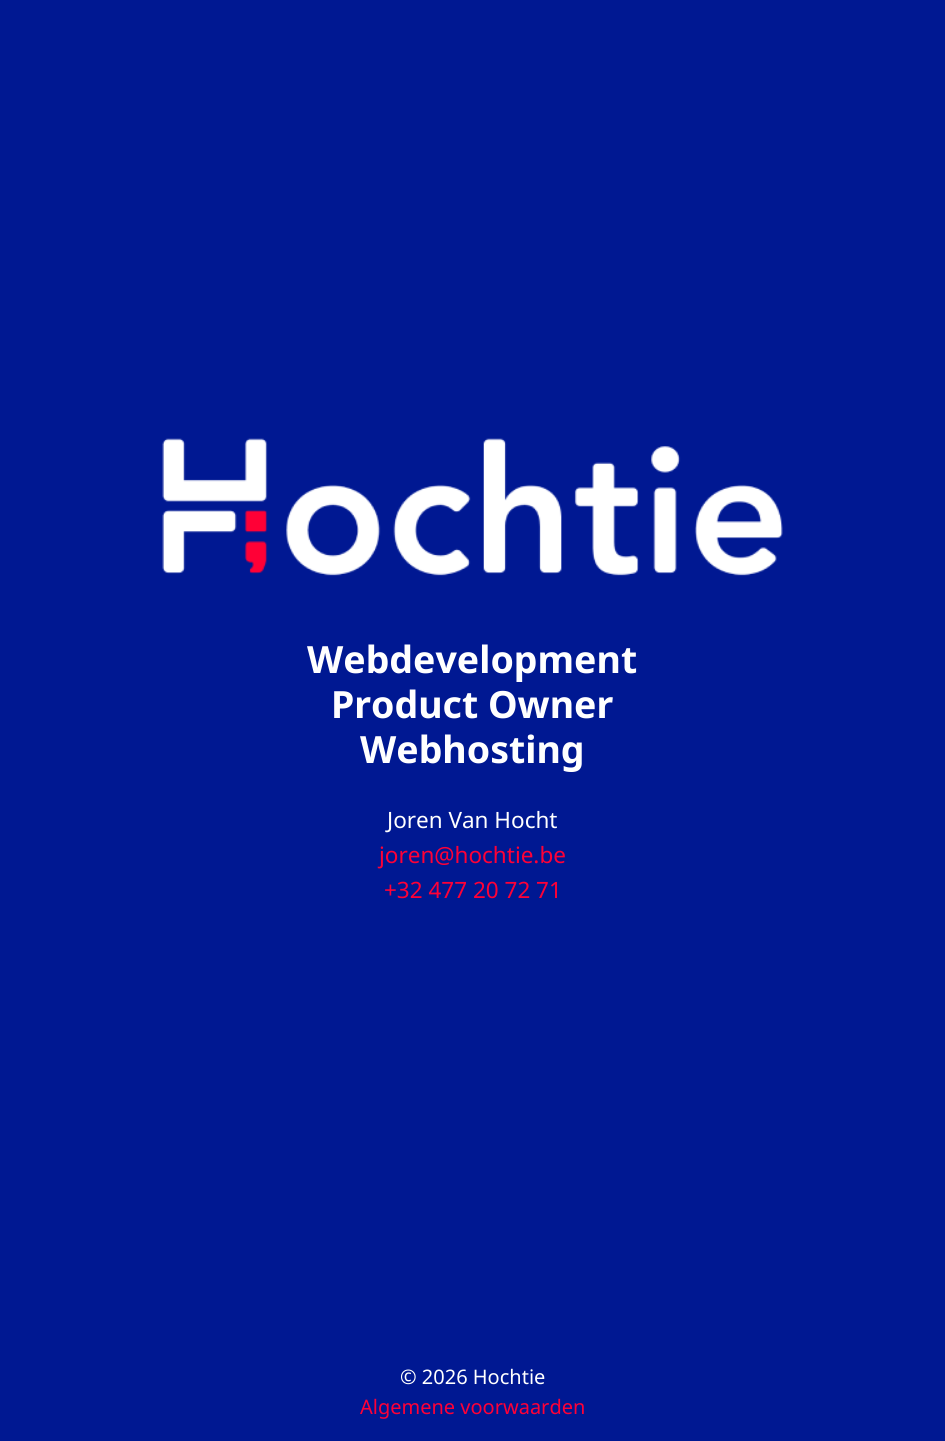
#include <cairo.h>
#include <math.h>
#include <stddef.h>


static void picture(cairo_t *cr, const char *path, double x, double y, double w, double h) {
    cairo_surface_t *image = cairo_image_surface_create_from_png(path);
    cairo_save(cr);
    cairo_set_source_surface(cr, image, x, y);
    cairo_rectangle(cr, x, y, w, h);
    cairo_fill(cr);
    cairo_restore(cr);
    cairo_surface_destroy(image);
}

int main(void) {
    cairo_surface_t *surface = cairo_image_surface_create(CAIRO_FORMAT_RGB24, 945, 1441);
    cairo_t *cr = cairo_create(surface);
    cairo_font_options_t *options = cairo_font_options_create();
    cairo_font_options_set_hint_metrics(options, CAIRO_HINT_METRICS_OFF);
    cairo_font_options_set_hint_style(options, CAIRO_HINT_STYLE_NONE);
    cairo_set_font_options(cr, options);
    cairo_set_miter_limit(cr, 4);
    cairo_set_source_rgb(cr, 0, 0.094, 0.573);
    cairo_paint(cr);
    picture(cr, "img1.png", 162, 438, 621, 138);
    cairo_select_font_face(cr, "Noto Sans", CAIRO_FONT_SLANT_NORMAL, CAIRO_FONT_WEIGHT_BOLD);
    cairo_set_font_size(cr, 37.5);
    cairo_set_source_rgb(cr, 1, 1, 1);
    cairo_move_to(cr, 307, 673);
    cairo_show_text(cr, "Webdevelopment");
    cairo_move_to(cr, 331, 718);
    cairo_show_text(cr, "Product Owner");
    cairo_move_to(cr, 360, 763);
    cairo_show_text(cr, "Webhosting");
    cairo_select_font_face(cr, "Noto Sans", CAIRO_FONT_SLANT_NORMAL, CAIRO_FONT_WEIGHT_NORMAL);
    cairo_set_font_size(cr, 22.5);
    cairo_move_to(cr, 387, 828);
    cairo_show_text(cr, "Joren Van Hocht");
    cairo_set_source_rgb(cr, 1, 0, 0.212);
    cairo_move_to(cr, 379, 863);
    cairo_show_text(cr, "joren@hochtie.be");
    cairo_move_to(cr, 384, 898);
    cairo_show_text(cr, "+32 477 20 72 71");
    cairo_set_font_size(cr, 20);
    cairo_set_source_rgb(cr, 1, 1, 1);
    cairo_move_to(cr, 400, 1384);
    cairo_show_text(cr, "© 2026 Hochtie");
    cairo_set_source_rgb(cr, 1, 0, 0.212);
    cairo_move_to(cr, 360, 1414);
    cairo_show_text(cr, "Algemene voorwaarden");
    cairo_surface_write_to_png(surface, "page.png");
    cairo_font_options_destroy(options);
    cairo_destroy(cr);
    cairo_surface_destroy(surface);
    return 0;
}
